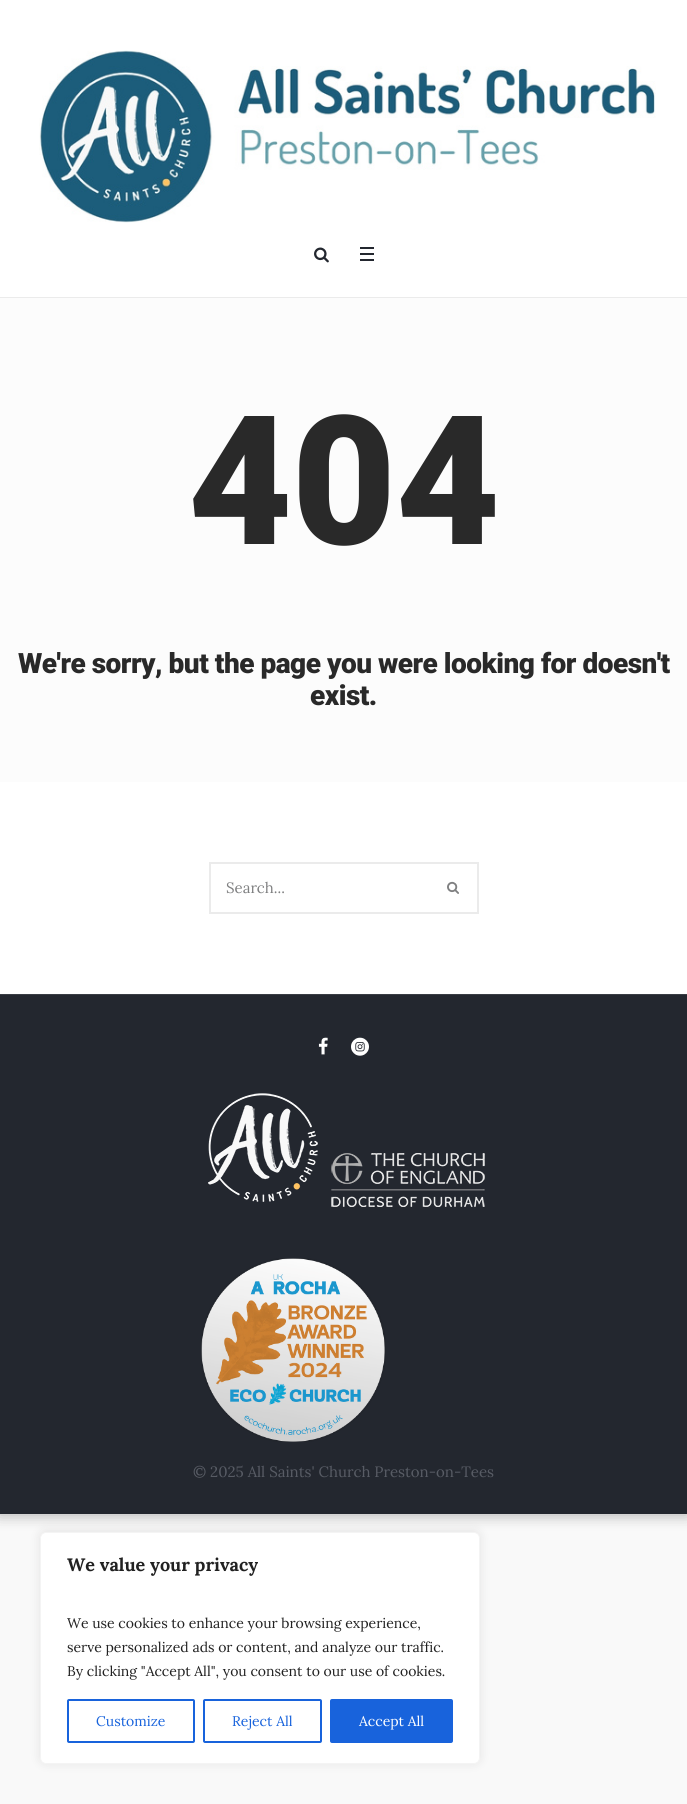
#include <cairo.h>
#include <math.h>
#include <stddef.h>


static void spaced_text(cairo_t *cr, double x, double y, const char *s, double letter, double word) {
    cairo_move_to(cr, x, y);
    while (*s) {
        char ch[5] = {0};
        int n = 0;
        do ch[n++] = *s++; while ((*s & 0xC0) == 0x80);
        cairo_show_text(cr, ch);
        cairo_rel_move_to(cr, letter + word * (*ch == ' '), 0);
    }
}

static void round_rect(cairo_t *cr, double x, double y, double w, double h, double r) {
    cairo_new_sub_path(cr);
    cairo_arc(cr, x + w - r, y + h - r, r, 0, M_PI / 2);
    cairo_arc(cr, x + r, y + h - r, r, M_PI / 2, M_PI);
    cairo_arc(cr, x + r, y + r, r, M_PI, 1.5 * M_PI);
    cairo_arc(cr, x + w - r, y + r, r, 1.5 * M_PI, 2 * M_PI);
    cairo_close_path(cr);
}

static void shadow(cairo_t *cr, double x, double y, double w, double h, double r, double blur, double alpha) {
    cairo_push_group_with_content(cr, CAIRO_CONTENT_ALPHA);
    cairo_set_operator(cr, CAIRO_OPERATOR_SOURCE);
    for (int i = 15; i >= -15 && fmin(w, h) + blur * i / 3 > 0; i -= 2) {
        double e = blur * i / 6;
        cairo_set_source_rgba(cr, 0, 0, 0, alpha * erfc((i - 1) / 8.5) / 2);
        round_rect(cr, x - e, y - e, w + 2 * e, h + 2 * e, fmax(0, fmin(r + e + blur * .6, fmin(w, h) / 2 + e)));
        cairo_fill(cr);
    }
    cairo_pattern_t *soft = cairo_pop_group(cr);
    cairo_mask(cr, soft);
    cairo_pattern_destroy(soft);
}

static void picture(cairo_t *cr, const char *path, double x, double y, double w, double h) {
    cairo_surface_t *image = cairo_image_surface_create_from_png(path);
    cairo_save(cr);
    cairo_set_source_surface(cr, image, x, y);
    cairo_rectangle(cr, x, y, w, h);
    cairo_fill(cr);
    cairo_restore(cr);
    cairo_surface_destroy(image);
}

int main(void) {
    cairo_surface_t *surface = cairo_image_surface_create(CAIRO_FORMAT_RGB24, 687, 1804);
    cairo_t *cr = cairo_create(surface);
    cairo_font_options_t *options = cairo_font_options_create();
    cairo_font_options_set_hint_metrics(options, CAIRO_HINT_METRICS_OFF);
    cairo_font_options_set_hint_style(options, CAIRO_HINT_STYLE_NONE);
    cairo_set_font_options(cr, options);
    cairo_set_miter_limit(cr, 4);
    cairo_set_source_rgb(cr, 0.976, 0.976, 0.976);
    cairo_paint(cr);
    cairo_set_source_rgb(cr, 0, 0, 0);
    shadow(cr, -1, -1, 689, 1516, 0, 7.5, 0.3);
    cairo_set_source_rgb(cr, 1, 1, 1);
    cairo_rectangle(cr, 0, 0, 687, 297);
    cairo_fill(cr);
    cairo_set_source_rgb(cr, 0.918, 0.918, 0.918);
    cairo_rectangle(cr, 0, 297, 687, 1);
    cairo_fill(cr);
    picture(cr, "img1.png", 39, 50, 617, 173);
    picture(cr, "img2.png", 314, 247, 15, 16);
    cairo_set_source_rgb(cr, 0.137, 0.153, 0.184);
    cairo_rectangle(cr, 360, 247, 14, 2);
    cairo_fill(cr);
    cairo_rectangle(cr, 360, 253, 14, 2);
    cairo_fill(cr);
    cairo_rectangle(cr, 360, 259, 14, 2);
    cairo_fill(cr);
    cairo_set_source_rgb(cr, 1, 1, 1);
    cairo_rectangle(cr, 0, 782, 687, 212);
    cairo_fill(cr);
    cairo_set_source_rgb(cr, 0.988, 0.988, 0.988);
    cairo_rectangle(cr, 0, 298, 687, 484);
    cairo_fill(cr);
    cairo_select_font_face(cr, "Roboto Black", CAIRO_FONT_SLANT_NORMAL, CAIRO_FONT_WEIGHT_NORMAL);
    cairo_set_font_size(cr, 180);
    cairo_set_source_rgb(cr, 0.161, 0.161, 0.161);
    spaced_text(cr, 188, 544, "404", -0.5, 0);
    cairo_set_font_size(cr, 28);
    spaced_text(cr, 18, 673, "We're sorry, but the page you were looking for doesn't", -0.5, 0);
    spaced_text(cr, 310, 705, "exist.", -0.5, 0);
    cairo_rectangle(cr, 210, 863, 268, 50);
    cairo_set_source_rgb(cr, 0.918, 0.918, 0.918);
    cairo_stroke(cr);
    cairo_select_font_face(cr, "Lora", CAIRO_FONT_SLANT_NORMAL, CAIRO_FONT_WEIGHT_NORMAL);
    cairo_set_font_size(cr, 15);
    cairo_set_source_rgb(cr, 0.498, 0.502, 0.506);
    cairo_move_to(cr, 226, 893);
    cairo_show_text(cr, "Search...");
    picture(cr, "img3.png", 447, 881, 12, 13);
    cairo_set_source_rgb(cr, 0.137, 0.153, 0.184);
    cairo_rectangle(cr, 0, 995, 687, 519);
    cairo_fill(cr);
    cairo_set_source_rgb(cr, 0.224, 0.239, 0.267);
    cairo_rectangle(cr, 0, 994, 687, 1);
    cairo_fill(cr);
    picture(cr, "img4.png", 318, 1037, 10, 18);
    picture(cr, "img5.png", 351, 1037, 18, 19);
    picture(cr, "img6.png", 208, 1093, 277, 114);
    picture(cr, "img7.png", 201, 1258, 185, 184);
    cairo_set_source_rgb(cr, 0.345, 0.361, 0.396);
    cairo_move_to(cr, 193, 1477);
    cairo_show_text(cr, "© 2025 All Saints' Church Preston-on-Tees");
    cairo_set_source_rgb(cr, 0.675, 0.671, 0.671);
    shadow(cr, 40, 1531, 440, 232, 6, 5, 0.3);
    cairo_set_source_rgb(cr, 1, 1, 1);
    round_rect(cr, 40.5, 1532.5, 439, 231, 5.5);
    cairo_fill_preserve(cr);
    cairo_set_source_rgb(cr, 0.957, 0.957, 0.957);
    cairo_set_line_width(cr, 1);
    cairo_stroke(cr);
    cairo_select_font_face(cr, "Lora", CAIRO_FONT_SLANT_NORMAL, CAIRO_FONT_WEIGHT_BOLD);
    cairo_set_font_size(cr, 18);
    cairo_set_source_rgb(cr, 0.129, 0.129, 0.129);
    cairo_move_to(cr, 67, 1571);
    cairo_show_text(cr, "We value your privacy");
    cairo_select_font_face(cr, "Lora", CAIRO_FONT_SLANT_NORMAL, CAIRO_FONT_WEIGHT_NORMAL);
    cairo_set_font_size(cr, 14);
    cairo_move_to(cr, 67, 1628);
    cairo_show_text(cr, "We use cookies to enhance your browsing experience,");
    cairo_move_to(cr, 67, 1652);
    cairo_show_text(cr, "serve personalized ads or content, and analyze our traffic.");
    cairo_move_to(cr, 67, 1676);
    cairo_show_text(cr, "By clicking \"Accept All\", you consent to our use of cookies.");
    round_rect(cr, 68, 1700, 126, 42, 1);
    cairo_set_source_rgb(cr, 0.094, 0.388, 0.863);
    cairo_set_line_width(cr, 2);
    cairo_stroke(cr);
    cairo_move_to(cr, 96, 1726);
    cairo_show_text(cr, "Customize");
    round_rect(cr, 204, 1700, 117, 42, 1);
    cairo_stroke(cr);
    cairo_move_to(cr, 232, 1726);
    cairo_show_text(cr, "Reject All");
    round_rect(cr, 331, 1700, 121, 42, 1);
    cairo_fill_preserve(cr);
    cairo_stroke(cr);
    cairo_set_source_rgb(cr, 1, 1, 1);
    cairo_move_to(cr, 359, 1726);
    cairo_show_text(cr, "Accept All");
    cairo_surface_write_to_png(surface, "page.png");
    cairo_font_options_destroy(options);
    cairo_destroy(cr);
    cairo_surface_destroy(surface);
    return 0;
}
